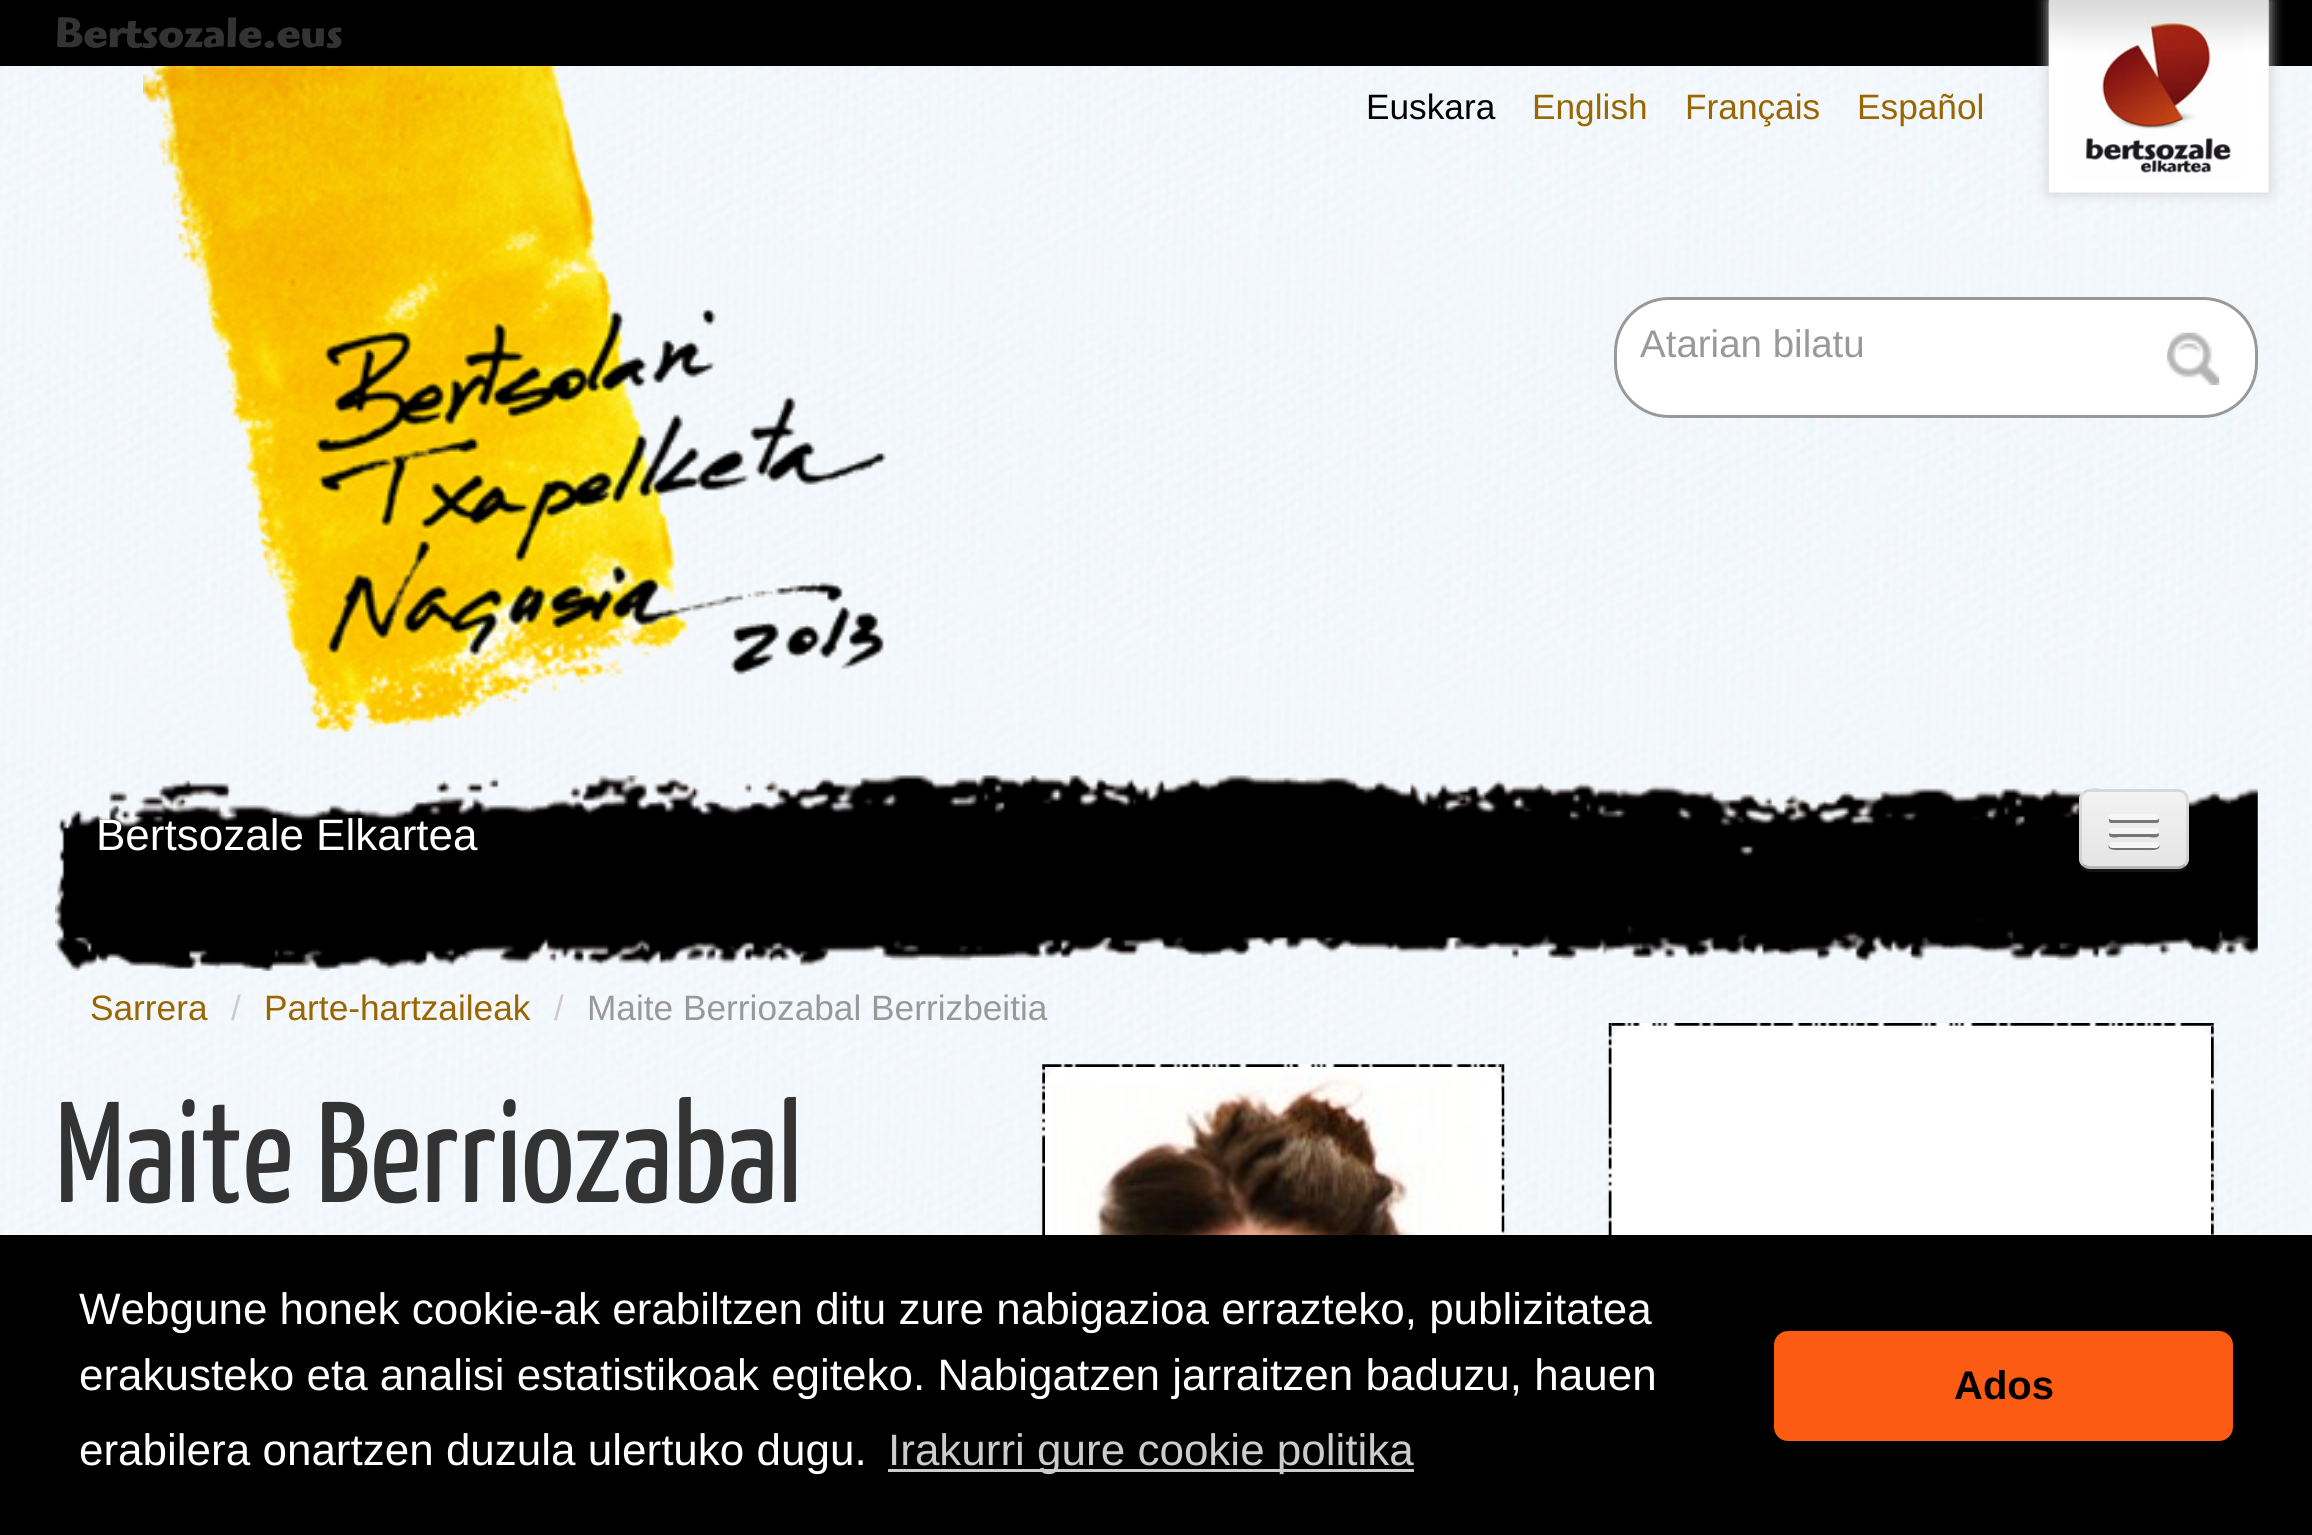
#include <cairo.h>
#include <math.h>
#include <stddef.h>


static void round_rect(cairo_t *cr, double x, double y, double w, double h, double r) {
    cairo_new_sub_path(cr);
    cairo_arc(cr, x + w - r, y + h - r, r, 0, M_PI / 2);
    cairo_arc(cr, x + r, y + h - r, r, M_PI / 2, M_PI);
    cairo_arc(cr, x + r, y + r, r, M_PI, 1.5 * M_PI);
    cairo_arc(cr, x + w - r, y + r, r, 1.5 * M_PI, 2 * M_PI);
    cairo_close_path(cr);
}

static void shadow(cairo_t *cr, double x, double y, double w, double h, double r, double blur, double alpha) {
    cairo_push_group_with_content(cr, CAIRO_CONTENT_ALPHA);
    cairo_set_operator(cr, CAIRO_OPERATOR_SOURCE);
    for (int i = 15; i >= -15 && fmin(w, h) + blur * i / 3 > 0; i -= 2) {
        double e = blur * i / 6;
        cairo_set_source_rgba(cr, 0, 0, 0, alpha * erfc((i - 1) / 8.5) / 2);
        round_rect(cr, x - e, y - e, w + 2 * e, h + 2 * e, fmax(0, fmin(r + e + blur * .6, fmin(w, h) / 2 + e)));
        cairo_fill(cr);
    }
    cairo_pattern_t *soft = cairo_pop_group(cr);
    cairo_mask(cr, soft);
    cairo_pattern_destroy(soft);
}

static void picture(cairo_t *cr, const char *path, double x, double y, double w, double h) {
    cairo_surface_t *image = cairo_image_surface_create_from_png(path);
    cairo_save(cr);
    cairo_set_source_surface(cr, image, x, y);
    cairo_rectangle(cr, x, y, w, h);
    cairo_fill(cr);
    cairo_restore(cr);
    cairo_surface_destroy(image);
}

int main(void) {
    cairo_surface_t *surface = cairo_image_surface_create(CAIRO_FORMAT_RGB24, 2312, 1535);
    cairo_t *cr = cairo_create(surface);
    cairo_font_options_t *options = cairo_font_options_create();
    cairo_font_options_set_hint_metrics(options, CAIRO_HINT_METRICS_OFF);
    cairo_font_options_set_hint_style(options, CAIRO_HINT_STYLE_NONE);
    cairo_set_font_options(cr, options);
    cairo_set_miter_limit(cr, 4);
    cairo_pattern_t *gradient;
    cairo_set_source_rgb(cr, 1, 1, 1);
    cairo_paint(cr);
    picture(cr, "img1.png", 0, 66, 2312, 1169);
    cairo_set_source_rgb(cr, 0, 0, 0);
    cairo_rectangle(cr, 0, 0, 2312, 66);
    cairo_fill(cr);
    cairo_select_font_face(cr, "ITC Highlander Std", CAIRO_FONT_SLANT_NORMAL, CAIRO_FONT_WEIGHT_BOLD);
    cairo_set_font_size(cr, 44);
    cairo_set_source_rgb(cr, 0.2, 0.2, 0.2);
    cairo_move_to(cr, 55, 47);
    cairo_show_text(cr, "Bertsozale.eus");
    cairo_set_source_rgb(cr, 0.8, 0.8, 0.8);
    shadow(cr, 2049, 0, 220, 193, 0, 7, 1);
    picture(cr, "img2.png", 2048, 0, 221, 193);
    picture(cr, "img3.png", 143, 66, 743, 666);
    cairo_select_font_face(cr, "Liberation Sans", CAIRO_FONT_SLANT_NORMAL, CAIRO_FONT_WEIGHT_NORMAL);
    cairo_set_font_size(cr, 35.25);
    cairo_set_source_rgb(cr, 0, 0, 0);
    cairo_move_to(cr, 1366, 119);
    cairo_show_text(cr, "Euskara");
    cairo_set_source_rgb(cr, 0.6, 0.4, 0);
    cairo_move_to(cr, 1532, 119);
    cairo_show_text(cr, "English");
    cairo_move_to(cr, 1685, 119);
    cairo_show_text(cr, "Français");
    cairo_move_to(cr, 1857, 119);
    cairo_show_text(cr, "Español");
    cairo_set_source_rgb(cr, 1, 1, 1);
    round_rect(cr, 1615.5, 298.5, 641, 118, 53.5);
    cairo_fill_preserve(cr);
    cairo_set_source_rgb(cr, 0.6, 0.6, 0.6);
    cairo_set_line_width(cr, 3);
    cairo_stroke(cr);
    cairo_set_font_size(cr, 38.5);
    cairo_move_to(cr, 1640, 357);
    cairo_show_text(cr, "Atarian bilatu");
    picture(cr, "img4.png", 2167, 332, 53, 53);
    picture(cr, "img5.png", 55, 775, 2203, 196);
    cairo_set_font_size(cr, 44);
    cairo_set_source_rgb(cr, 1, 1, 1);
    cairo_move_to(cr, 96, 850);
    cairo_show_text(cr, "Bertsozale Elkartea");
    cairo_set_source_rgb(cr, 0.075, 0.075, 0.075);
    cairo_new_path(cr);
    cairo_move_to(cr, 2079, 858);
    cairo_curve_to(cr, 2079, 875, 2091, 872, 2105, 872);
    cairo_line_to(cr, 2163, 872);
    cairo_curve_to(cr, 2177, 872, 2189, 875, 2189, 858);
    cairo_curve_to(cr, 2189, 864, 2184, 869, 2178, 869);
    cairo_line_to(cr, 2090, 869);
    cairo_curve_to(cr, 2084, 869, 2079, 864, 2079, 858);
    cairo_close_path(cr);
    cairo_fill(cr);
    cairo_set_source_rgb(cr, 0.929, 0.929, 0.929);
    round_rect(cr, 2079, 789, 110, 80, 11);
    cairo_fill(cr);
    cairo_save(cr);
    round_rect(cr, 2079, 789, 110, 80, 11);
    cairo_clip(cr);
    gradient = cairo_pattern_create_linear(2134, 792, 2134, 866);
    cairo_pattern_add_color_stop_rgba(gradient, 0, 0.949, 0.949, 0.949, 1);
    cairo_pattern_add_color_stop_rgba(gradient, 1, 0.898, 0.898, 0.898, 1);
    cairo_set_source(cr, gradient);
    cairo_pattern_destroy(gradient);
    cairo_rectangle(cr, 2079, 792, 110, 74);
    cairo_fill(cr);
    cairo_restore(cr);
    cairo_new_path(cr);
    cairo_move_to(cr, 2185, 865);
    cairo_curve_to(cr, 2183, 866.5, 2180.5, 867.5, 2178, 867.5);
    cairo_line_to(cr, 2090, 867.5);
    cairo_curve_to(cr, 2087.5, 867.5, 2085, 866.5, 2083, 865);
    cairo_set_source_rgba(cr, 0, 0, 0, 0.25);
    cairo_set_line_width(cr, 2.8);
    cairo_stroke(cr);
    cairo_new_path(cr);
    cairo_move_to(cr, 2083, 865);
    cairo_curve_to(cr, 2081.5, 863, 2080.5, 860.5, 2080.5, 858);
    cairo_line_to(cr, 2080.5, 800);
    cairo_curve_to(cr, 2080.5, 797.5, 2081.5, 795, 2083, 793.5);
    cairo_curve_to(cr, 2085, 791.5, 2087.5, 790.5, 2090, 790.5);
    cairo_line_to(cr, 2178, 790.5);
    cairo_curve_to(cr, 2180.5, 790.5, 2183, 791.5, 2185, 793.5);
    cairo_curve_to(cr, 2186.5, 795, 2187.5, 797.5, 2187.5, 800);
    cairo_line_to(cr, 2187.5, 858);
    cairo_curve_to(cr, 2187.5, 860.5, 2186.5, 863, 2185, 865);
    cairo_set_source_rgba(cr, 0, 0, 0, 0.1);
    cairo_stroke(cr);
    cairo_set_source_rgb(cr, 0.467, 0.467, 0.467);
    cairo_new_path(cr);
    cairo_move_to(cr, 2110, 818);
    cairo_curve_to(cr, 2108, 820, 2109, 823, 2111, 823);
    cairo_line_to(cr, 2157, 823);
    cairo_curve_to(cr, 2159, 823, 2160, 820, 2158, 818);
    cairo_curve_to(cr, 2158, 819, 2157, 820, 2156, 820);
    cairo_line_to(cr, 2112, 820);
    cairo_curve_to(cr, 2111, 820, 2110, 819, 2110, 818);
    cairo_close_path(cr);
    cairo_fill(cr);
    cairo_set_source_rgb(cr, 0.961, 0.961, 0.961);
    round_rect(cr, 2109, 814, 50, 6, 3);
    cairo_fill(cr);
    cairo_set_source_rgb(cr, 0.459, 0.459, 0.459);
    cairo_new_path(cr);
    cairo_move_to(cr, 2110, 832);
    cairo_line_to(cr, 2109, 835);
    cairo_curve_to(cr, 2110, 839, 2118, 837, 2119, 837);
    cairo_line_to(cr, 2149, 837);
    cairo_curve_to(cr, 2150, 837, 2158, 839, 2159, 835);
    cairo_line_to(cr, 2158, 832);
    cairo_line_to(cr, 2156, 833);
    cairo_line_to(cr, 2112, 833);
    cairo_close_path(cr);
    cairo_fill(cr);
    cairo_set_source_rgb(cr, 0.961, 0.961, 0.961);
    round_rect(cr, 2109, 828, 50, 6, 3);
    cairo_fill(cr);
    cairo_set_source_rgb(cr, 0.455, 0.455, 0.455);
    cairo_new_path(cr);
    cairo_move_to(cr, 2109, 845);
    cairo_curve_to(cr, 2106, 851, 2119, 850, 2119, 850);
    cairo_line_to(cr, 2149, 850);
    cairo_curve_to(cr, 2149, 850, 2162, 851, 2159, 845);
    cairo_curve_to(cr, 2158, 846, 2157, 847, 2156, 847);
    cairo_line_to(cr, 2112, 847);
    cairo_curve_to(cr, 2111, 847, 2110, 846, 2109, 845);
    cairo_close_path(cr);
    cairo_fill(cr);
    cairo_set_source_rgb(cr, 0.961, 0.961, 0.961);
    round_rect(cr, 2109, 842, 50, 6, 3);
    cairo_fill(cr);
    cairo_set_font_size(cr, 35.25);
    cairo_set_source_rgb(cr, 0.6, 0.4, 0);
    cairo_move_to(cr, 90, 1020);
    cairo_show_text(cr, "Sarrera");
    cairo_set_source_rgb(cr, 0.8, 0.8, 0.8);
    cairo_move_to(cr, 231, 1020);
    cairo_show_text(cr, "/");
    cairo_set_source_rgb(cr, 0.6, 0.4, 0);
    cairo_move_to(cr, 264, 1020);
    cairo_show_text(cr, "Parte-hartzaileak");
    cairo_set_source_rgb(cr, 0.8, 0.8, 0.8);
    cairo_move_to(cr, 554, 1020);
    cairo_show_text(cr, "/");
    cairo_set_source_rgb(cr, 0.6, 0.6, 0.6);
    cairo_move_to(cr, 587, 1020);
    cairo_show_text(cr, "Maite Berriozabal Berrizbeitia");
    cairo_select_font_face(cr, "Yanone Kaffeesatz", CAIRO_FONT_SLANT_NORMAL, CAIRO_FONT_WEIGHT_NORMAL);
    cairo_set_font_size(cr, 143);
    cairo_set_source_rgb(cr, 0.2, 0.2, 0.2);
    cairo_move_to(cr, 55, 1202);
    cairo_show_text(cr, "Maite Berriozabal");
    cairo_set_source_rgb(cr, 0, 0, 0);
    shadow(cr, 1042, 1067, 462, 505, 28, 3, 0.05);
    cairo_set_source_rgb(cr, 1, 1, 1);
    round_rect(cr, 1042, 1064, 462, 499, 28);
    cairo_fill(cr);
    picture(cr, "img6.png", 1042, 1064, 463, 171);
    picture(cr, "img7.png", 1501, 1087, 1, 148);
    cairo_set_source_rgb(cr, 0, 0, 0);
    shadow(cr, 1609, 1026, 605, 269, 28, 3, 0.05);
    cairo_set_source_rgb(cr, 1, 1, 1);
    round_rect(cr, 1609, 1023, 605, 270, 28);
    cairo_fill(cr);
    picture(cr, "img8.png", 1608, 1023, 606, 212);
    cairo_set_source_rgb(cr, 0, 0, 0);
    cairo_rectangle(cr, 0, 1235, 2312, 300);
    cairo_fill(cr);
    cairo_select_font_face(cr, "Liberation Sans", CAIRO_FONT_SLANT_NORMAL, CAIRO_FONT_WEIGHT_NORMAL);
    cairo_set_font_size(cr, 44);
    cairo_set_source_rgb(cr, 1, 1, 1);
    cairo_move_to(cr, 79, 1324);
    cairo_show_text(cr, "Webgune honek cookie-ak erabiltzen ditu zure nabigazioa errazteko, publizitatea");
    cairo_move_to(cr, 79, 1390);
    cairo_show_text(cr, "erakusteko eta analisi estatistikoak egiteko. Nabigatzen jarraitzen baduzu, hauen");
    cairo_move_to(cr, 79, 1465);
    cairo_show_text(cr, "erabilera onartzen duzula ulertuko dugu.");
    cairo_set_source_rgb(cr, 0.8, 0.8, 0.8);
    cairo_rectangle(cr, 888, 1469, 526, 3);
    cairo_fill(cr);
    cairo_move_to(cr, 888, 1465);
    cairo_show_text(cr, "Irakurri gure cookie politika");
    cairo_set_source_rgb(cr, 0.984, 0.357, 0.071);
    round_rect(cr, 1774, 1331, 459, 110, 14);
    cairo_fill(cr);
    cairo_select_font_face(cr, "Liberation Sans", CAIRO_FONT_SLANT_NORMAL, CAIRO_FONT_WEIGHT_BOLD);
    cairo_set_font_size(cr, 40);
    cairo_set_source_rgb(cr, 0, 0, 0);
    cairo_move_to(cr, 1954, 1399);
    cairo_show_text(cr, "Ados");
    cairo_surface_write_to_png(surface, "page.png");
    cairo_font_options_destroy(options);
    cairo_destroy(cr);
    cairo_surface_destroy(surface);
    return 0;
}
